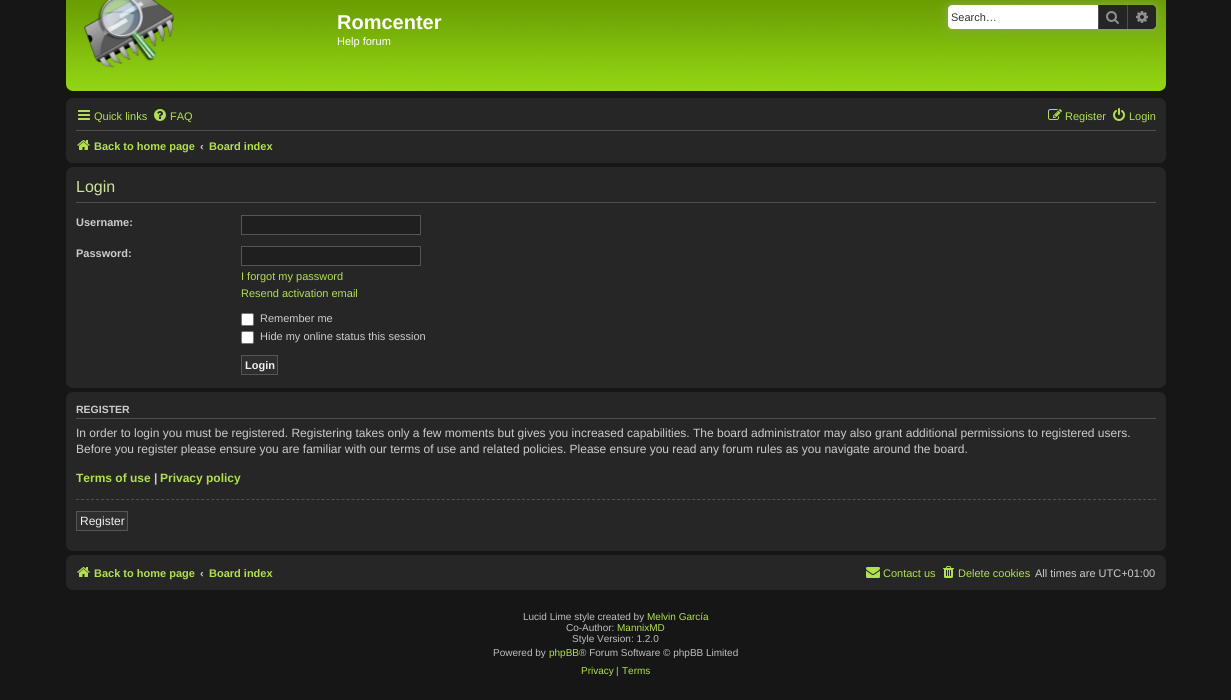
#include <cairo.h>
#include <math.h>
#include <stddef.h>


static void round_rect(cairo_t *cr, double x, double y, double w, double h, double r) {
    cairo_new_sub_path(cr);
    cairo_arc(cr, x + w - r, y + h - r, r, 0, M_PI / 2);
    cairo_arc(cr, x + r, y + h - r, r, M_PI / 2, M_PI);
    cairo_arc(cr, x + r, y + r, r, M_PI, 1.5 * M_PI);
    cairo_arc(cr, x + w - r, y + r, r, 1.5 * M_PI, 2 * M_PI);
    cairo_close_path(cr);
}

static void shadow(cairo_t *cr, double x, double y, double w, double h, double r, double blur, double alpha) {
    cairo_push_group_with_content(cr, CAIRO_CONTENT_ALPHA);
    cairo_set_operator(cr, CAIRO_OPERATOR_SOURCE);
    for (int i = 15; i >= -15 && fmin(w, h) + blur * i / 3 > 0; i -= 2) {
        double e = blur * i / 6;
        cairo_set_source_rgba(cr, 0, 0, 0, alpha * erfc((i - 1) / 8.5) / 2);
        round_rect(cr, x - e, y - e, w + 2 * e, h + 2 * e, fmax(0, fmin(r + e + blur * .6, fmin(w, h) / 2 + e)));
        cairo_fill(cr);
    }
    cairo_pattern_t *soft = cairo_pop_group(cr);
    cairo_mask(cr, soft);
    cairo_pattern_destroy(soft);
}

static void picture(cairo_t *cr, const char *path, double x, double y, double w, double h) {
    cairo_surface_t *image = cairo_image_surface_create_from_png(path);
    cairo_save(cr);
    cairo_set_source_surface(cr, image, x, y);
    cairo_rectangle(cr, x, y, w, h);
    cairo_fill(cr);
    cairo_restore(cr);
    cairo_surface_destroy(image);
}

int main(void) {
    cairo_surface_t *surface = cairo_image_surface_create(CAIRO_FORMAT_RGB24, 1231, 700);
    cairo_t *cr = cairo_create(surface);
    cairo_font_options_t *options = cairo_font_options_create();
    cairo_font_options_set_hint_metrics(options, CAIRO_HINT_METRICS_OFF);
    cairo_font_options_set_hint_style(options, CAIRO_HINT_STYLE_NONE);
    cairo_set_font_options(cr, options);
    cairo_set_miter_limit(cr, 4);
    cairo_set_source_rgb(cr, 0.086, 0.086, 0.086);
    cairo_paint(cr);
    picture(cr, "img1.png", 66, 0, 1100, 91);
    picture(cr, "img2.png", 84, 0, 90, 68);
    cairo_select_font_face(cr, "Liberation Sans", CAIRO_FONT_SLANT_NORMAL, CAIRO_FONT_WEIGHT_BOLD);
    cairo_set_font_size(cr, 20);
    cairo_set_source_rgb(cr, 1, 1, 1);
    cairo_move_to(cr, 337, 29);
    cairo_show_text(cr, "Romcenter");
    cairo_select_font_face(cr, "Liberation Sans", CAIRO_FONT_SLANT_NORMAL, CAIRO_FONT_WEIGHT_NORMAL);
    cairo_set_font_size(cr, 11);
    cairo_move_to(cr, 337, 45);
    cairo_show_text(cr, "Help forum");
    cairo_set_source_rgb(cr, 0.549, 0.667, 0.329);
    shadow(cr, 948, 5, 208, 24, 4, 5, 1);
    cairo_set_source_rgb(cr, 1, 1, 1);
    cairo_new_path(cr);
    cairo_move_to(cr, 952, 5);
    cairo_line_to(cr, 1098, 5);
    cairo_line_to(cr, 1098, 29);
    cairo_line_to(cr, 952, 29);
    cairo_curve_to(cr, 950, 29, 948, 27, 948, 25);
    cairo_line_to(cr, 948, 9);
    cairo_curve_to(cr, 948, 7, 950, 5, 952, 5);
    cairo_close_path(cr);
    cairo_fill(cr);
    cairo_set_source_rgb(cr, 0.2, 0.2, 0.2);
    cairo_move_to(cr, 951, 21);
    cairo_show_text(cr, "Search…");
    cairo_set_source_rgb(cr, 0.145, 0.145, 0.145);
    cairo_rectangle(cr, 1099, 5, 28, 24);
    cairo_fill(cr);
    cairo_set_source_rgb(cr, 0.31, 0.31, 0.31);
    cairo_rectangle(cr, 1127, 5, 1, 24);
    cairo_fill(cr);
    cairo_rectangle(cr, 1098, 5, 1, 24);
    cairo_fill(cr);
    picture(cr, "img3.png", 1106, 11, 13, 13);
    cairo_set_source_rgb(cr, 0.145, 0.145, 0.145);
    cairo_new_path(cr);
    cairo_move_to(cr, 1128, 5);
    cairo_line_to(cr, 1152, 5);
    cairo_curve_to(cr, 1154, 5, 1156, 7, 1156, 9);
    cairo_line_to(cr, 1156, 25);
    cairo_curve_to(cr, 1156, 27, 1154, 29, 1152, 29);
    cairo_line_to(cr, 1128, 29);
    cairo_close_path(cr);
    cairo_fill(cr);
    picture(cr, "img4.png", 1136, 11, 12, 12);
    cairo_set_source_rgb(cr, 0.149, 0.149, 0.149);
    round_rect(cr, 66, 98, 1100, 65, 7);
    cairo_fill(cr);
    picture(cr, "img5.png", 78, 110, 12, 10);
    cairo_set_source_rgb(cr, 0.694, 0.878, 0.318);
    cairo_move_to(cr, 94, 120);
    cairo_show_text(cr, "Quick links");
    picture(cr, "img6.png", 154, 109, 12, 12);
    cairo_move_to(cr, 170, 120);
    cairo_show_text(cr, "FAQ");
    picture(cr, "img7.png", 1048, 109, 14, 11);
    cairo_move_to(cr, 1065, 120);
    cairo_show_text(cr, "Register");
    picture(cr, "img8.png", 1113, 108, 12, 13);
    cairo_move_to(cr, 1129, 120);
    cairo_show_text(cr, "Login");
    cairo_set_source_rgb(cr, 0.31, 0.31, 0.31);
    cairo_rectangle(cr, 76, 130, 1080, 1);
    cairo_fill(cr);
    picture(cr, "img9.png", 77, 140, 13, 10);
    cairo_select_font_face(cr, "Liberation Sans", CAIRO_FONT_SLANT_NORMAL, CAIRO_FONT_WEIGHT_BOLD);
    cairo_set_source_rgb(cr, 0.694, 0.878, 0.318);
    cairo_move_to(cr, 94, 150);
    cairo_show_text(cr, "Back to home page");
    cairo_set_source_rgb(cr, 0.8, 0.8, 0.8);
    cairo_move_to(cr, 200, 150);
    cairo_show_text(cr, "‹");
    cairo_set_source_rgb(cr, 0.694, 0.878, 0.318);
    cairo_move_to(cr, 209, 150);
    cairo_show_text(cr, "Board index");
    cairo_set_source_rgb(cr, 0.149, 0.149, 0.149);
    round_rect(cr, 66, 167, 1100, 221, 7);
    cairo_fill(cr);
    cairo_set_source_rgb(cr, 0.31, 0.31, 0.31);
    cairo_rectangle(cr, 76, 202, 1080, 1);
    cairo_fill(cr);
    cairo_select_font_face(cr, "Liberation Sans", CAIRO_FONT_SLANT_NORMAL, CAIRO_FONT_WEIGHT_NORMAL);
    cairo_set_font_size(cr, 16);
    cairo_set_source_rgb(cr, 0.8, 0.898, 0.604);
    cairo_move_to(cr, 76, 192);
    cairo_show_text(cr, "Login");
    cairo_select_font_face(cr, "Liberation Sans", CAIRO_FONT_SLANT_NORMAL, CAIRO_FONT_WEIGHT_BOLD);
    cairo_set_font_size(cr, 11);
    cairo_set_source_rgb(cr, 0.8, 0.8, 0.8);
    cairo_move_to(cr, 76, 226);
    cairo_show_text(cr, "Username:");
    cairo_set_source_rgb(cr, 0.122, 0.122, 0.122);
    cairo_rectangle(cr, 241.5, 215.5, 179, 19);
    cairo_fill_preserve(cr);
    cairo_set_source_rgb(cr, 0.333, 0.333, 0.333);
    cairo_set_line_width(cr, 1);
    cairo_stroke(cr);
    cairo_set_source_rgb(cr, 0.8, 0.8, 0.8);
    cairo_move_to(cr, 76, 257);
    cairo_show_text(cr, "Password:");
    cairo_set_source_rgb(cr, 0.122, 0.122, 0.122);
    cairo_rectangle(cr, 241.5, 246.5, 179, 19);
    cairo_fill_preserve(cr);
    cairo_set_source_rgb(cr, 0.333, 0.333, 0.333);
    cairo_stroke(cr);
    cairo_select_font_face(cr, "Liberation Sans", CAIRO_FONT_SLANT_NORMAL, CAIRO_FONT_WEIGHT_NORMAL);
    cairo_set_source_rgb(cr, 0.694, 0.878, 0.318);
    cairo_move_to(cr, 241, 280);
    cairo_show_text(cr, "I forgot my password");
    cairo_move_to(cr, 241, 297);
    cairo_show_text(cr, "Resend activation email");
    cairo_set_source_rgb(cr, 1, 1, 1);
    round_rect(cr, 241.5, 313.5, 12, 12, 1.5);
    cairo_fill_preserve(cr);
    cairo_set_source_rgb(cr, 0.463, 0.463, 0.463);
    cairo_stroke(cr);
    cairo_set_source_rgb(cr, 0.8, 0.8, 0.8);
    cairo_move_to(cr, 260, 322);
    cairo_show_text(cr, "Remember me");
    cairo_set_source_rgb(cr, 1, 1, 1);
    round_rect(cr, 241.5, 331.5, 12, 12, 1.5);
    cairo_fill_preserve(cr);
    cairo_set_source_rgb(cr, 0.463, 0.463, 0.463);
    cairo_stroke(cr);
    cairo_set_source_rgb(cr, 0.8, 0.8, 0.8);
    cairo_move_to(cr, 260, 340);
    cairo_show_text(cr, "Hide my online status this session");
    cairo_set_source_rgb(cr, 0.18, 0.18, 0.18);
    cairo_rectangle(cr, 241.5, 355.5, 36, 19);
    cairo_fill_preserve(cr);
    cairo_set_source_rgb(cr, 0.333, 0.333, 0.333);
    cairo_stroke(cr);
    cairo_select_font_face(cr, "Liberation Sans", CAIRO_FONT_SLANT_NORMAL, CAIRO_FONT_WEIGHT_BOLD);
    cairo_set_source_rgb(cr, 0.941, 0.941, 0.941);
    cairo_move_to(cr, 245, 369);
    cairo_show_text(cr, "Login");
    cairo_set_source_rgb(cr, 0.149, 0.149, 0.149);
    round_rect(cr, 66, 392, 1100, 159, 7);
    cairo_fill(cr);
    cairo_set_source_rgb(cr, 0.31, 0.31, 0.31);
    cairo_rectangle(cr, 76, 418, 1080, 1);
    cairo_fill(cr);
    cairo_set_font_size(cr, 10.5);
    cairo_set_source_rgb(cr, 0.8, 0.8, 0.8);
    cairo_move_to(cr, 76, 413);
    cairo_show_text(cr, "REGISTER");
    cairo_select_font_face(cr, "Liberation Sans", CAIRO_FONT_SLANT_NORMAL, CAIRO_FONT_WEIGHT_NORMAL);
    cairo_set_font_size(cr, 12);
    cairo_move_to(cr, 76, 437);
    cairo_show_text(cr, "In order to login you must be registered. Registering takes only a few moments but gives you increased capabilities. The board administrator may also grant additional permissions to registered users.");
    cairo_move_to(cr, 76, 453);
    cairo_show_text(cr, "Before you register please ensure you are familiar with our terms of use and related policies. Please ensure you read any forum rules as you navigate around the board.");
    cairo_select_font_face(cr, "Liberation Sans", CAIRO_FONT_SLANT_NORMAL, CAIRO_FONT_WEIGHT_BOLD);
    cairo_set_source_rgb(cr, 0.694, 0.878, 0.318);
    cairo_move_to(cr, 76, 482);
    cairo_show_text(cr, "Terms of use");
    cairo_set_source_rgb(cr, 0.8, 0.8, 0.8);
    cairo_move_to(cr, 154, 482);
    cairo_show_text(cr, "|");
    cairo_set_source_rgb(cr, 0.694, 0.878, 0.318);
    cairo_move_to(cr, 160, 482);
    cairo_show_text(cr, "Privacy policy");
    cairo_new_path(cr);
    cairo_move_to(cr, 76, 499.5);
    cairo_line_to(cr, 1156, 499.5);
    cairo_set_source_rgb(cr, 0.31, 0.31, 0.31);
    cairo_set_dash(cr, (double[]){3, 2.01}, 2, 0);
    cairo_stroke(cr);
    cairo_set_source_rgb(cr, 0.18, 0.18, 0.18);
    cairo_rectangle(cr, 76.5, 511.5, 51, 19);
    cairo_fill_preserve(cr);
    cairo_set_source_rgb(cr, 0.333, 0.333, 0.333);
    cairo_set_dash(cr, NULL, 0, 0);
    cairo_stroke(cr);
    cairo_select_font_face(cr, "Liberation Sans", CAIRO_FONT_SLANT_NORMAL, CAIRO_FONT_WEIGHT_NORMAL);
    cairo_set_source_rgb(cr, 0.941, 0.941, 0.941);
    cairo_move_to(cr, 80, 525);
    cairo_show_text(cr, "Register");
    cairo_set_source_rgb(cr, 0.149, 0.149, 0.149);
    round_rect(cr, 66, 555, 1100, 35, 7);
    cairo_fill(cr);
    picture(cr, "img9.png", 77, 567, 13, 10);
    cairo_select_font_face(cr, "Liberation Sans", CAIRO_FONT_SLANT_NORMAL, CAIRO_FONT_WEIGHT_BOLD);
    cairo_set_font_size(cr, 11);
    cairo_set_source_rgb(cr, 0.694, 0.878, 0.318);
    cairo_move_to(cr, 94, 577);
    cairo_show_text(cr, "Back to home page");
    cairo_set_source_rgb(cr, 0.8, 0.8, 0.8);
    cairo_move_to(cr, 200, 577);
    cairo_show_text(cr, "‹");
    cairo_set_source_rgb(cr, 0.694, 0.878, 0.318);
    cairo_move_to(cr, 209, 577);
    cairo_show_text(cr, "Board index");
    picture(cr, "img10.png", 866, 567, 14, 11);
    cairo_select_font_face(cr, "Liberation Sans", CAIRO_FONT_SLANT_NORMAL, CAIRO_FONT_WEIGHT_NORMAL);
    cairo_move_to(cr, 883, 577);
    cairo_show_text(cr, "Contact us");
    picture(cr, "img11.png", 943, 566, 11, 12);
    cairo_move_to(cr, 958, 577);
    cairo_show_text(cr, "Delete cookies");
    cairo_set_source_rgb(cr, 0.8, 0.8, 0.8);
    cairo_move_to(cr, 1035, 577);
    cairo_show_text(cr, "All times are UTC+01:00");
    cairo_set_font_size(cr, 10);
    cairo_set_source_rgb(cr, 0.749, 0.749, 0.749);
    cairo_move_to(cr, 523, 620);
    cairo_show_text(cr, "Lucid Lime style created by");
    cairo_set_source_rgb(cr, 0.694, 0.878, 0.318);
    cairo_move_to(cr, 647, 620);
    cairo_show_text(cr, "Melvin García");
    cairo_set_source_rgb(cr, 0.749, 0.749, 0.749);
    cairo_move_to(cr, 566, 631);
    cairo_show_text(cr, "Co-Author:");
    cairo_set_source_rgb(cr, 0.694, 0.878, 0.318);
    cairo_move_to(cr, 617, 631);
    cairo_show_text(cr, "MannixMD");
    cairo_set_source_rgb(cr, 0.749, 0.749, 0.749);
    cairo_move_to(cr, 572, 642);
    cairo_show_text(cr, "Style Version: 1.2.0");
    cairo_move_to(cr, 493, 656);
    cairo_show_text(cr, "Powered by");
    cairo_set_source_rgb(cr, 0.694, 0.878, 0.318);
    cairo_move_to(cr, 549, 656);
    cairo_show_text(cr, "phpBB");
    cairo_set_source_rgb(cr, 0.749, 0.749, 0.749);
    cairo_move_to(cr, 579, 656);
    cairo_show_text(cr, "® Forum Software © phpBB Limited");
    cairo_set_source_rgb(cr, 0.694, 0.878, 0.318);
    cairo_move_to(cr, 581, 674);
    cairo_show_text(cr, "Privacy");
    cairo_set_source_rgb(cr, 0.749, 0.749, 0.749);
    cairo_move_to(cr, 616, 674);
    cairo_show_text(cr, "|");
    cairo_set_source_rgb(cr, 0.694, 0.878, 0.318);
    cairo_move_to(cr, 622, 674);
    cairo_show_text(cr, "Terms");
    cairo_surface_write_to_png(surface, "page.png");
    cairo_font_options_destroy(options);
    cairo_destroy(cr);
    cairo_surface_destroy(surface);
    return 0;
}
